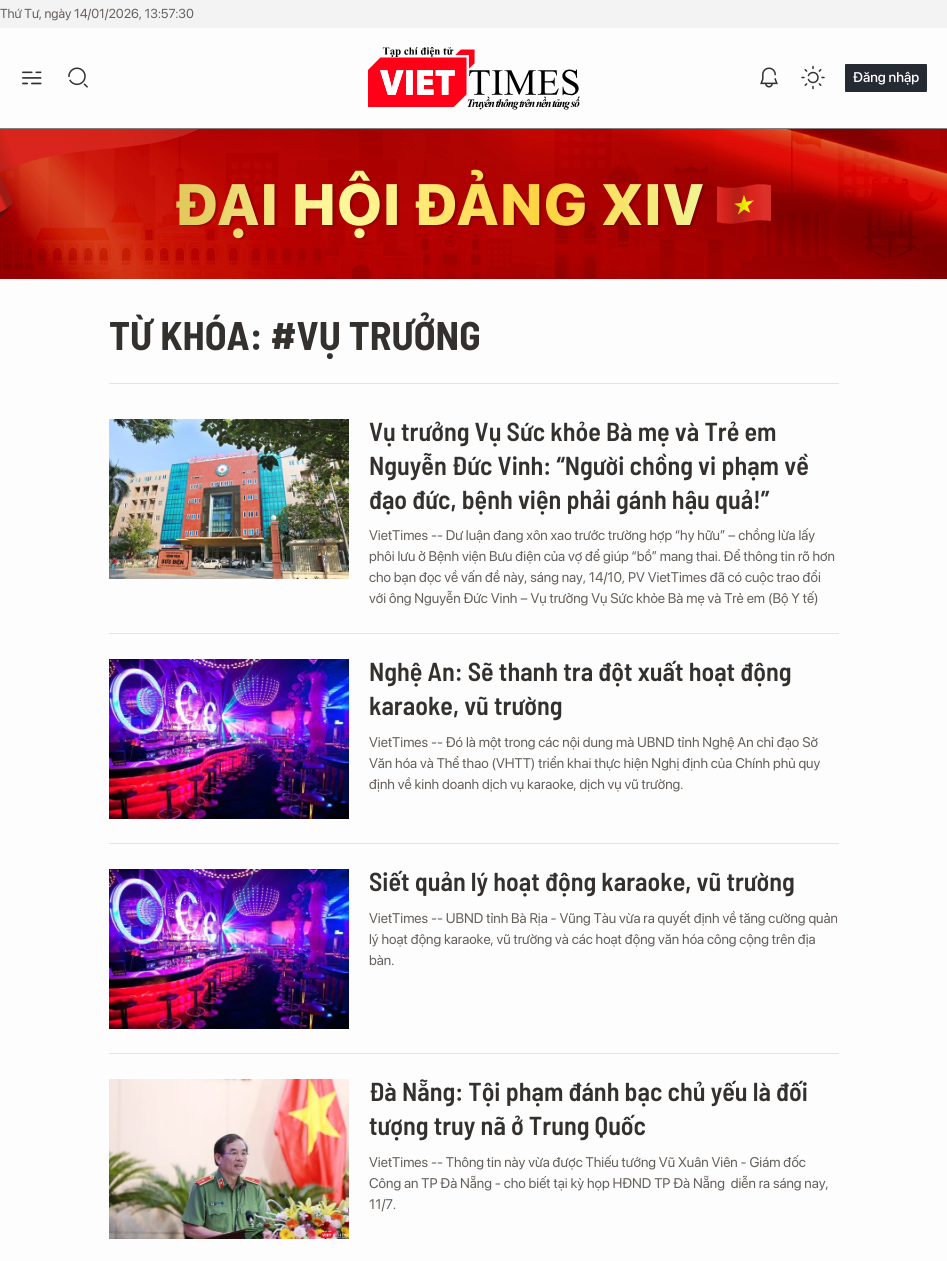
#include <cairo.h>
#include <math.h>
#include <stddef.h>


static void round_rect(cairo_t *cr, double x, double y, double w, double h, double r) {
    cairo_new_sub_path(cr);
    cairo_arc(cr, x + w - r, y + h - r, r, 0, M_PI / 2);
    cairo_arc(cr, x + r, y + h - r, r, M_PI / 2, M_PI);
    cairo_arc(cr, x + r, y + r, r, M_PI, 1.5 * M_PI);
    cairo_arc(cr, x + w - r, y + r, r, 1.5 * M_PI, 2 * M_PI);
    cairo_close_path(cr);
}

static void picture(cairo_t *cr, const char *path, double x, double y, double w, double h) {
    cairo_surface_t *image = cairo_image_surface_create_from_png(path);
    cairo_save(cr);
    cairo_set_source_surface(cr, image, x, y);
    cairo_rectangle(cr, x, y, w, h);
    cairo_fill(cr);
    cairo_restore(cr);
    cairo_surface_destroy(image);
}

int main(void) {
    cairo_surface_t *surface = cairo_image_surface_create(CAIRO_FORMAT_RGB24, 947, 1261);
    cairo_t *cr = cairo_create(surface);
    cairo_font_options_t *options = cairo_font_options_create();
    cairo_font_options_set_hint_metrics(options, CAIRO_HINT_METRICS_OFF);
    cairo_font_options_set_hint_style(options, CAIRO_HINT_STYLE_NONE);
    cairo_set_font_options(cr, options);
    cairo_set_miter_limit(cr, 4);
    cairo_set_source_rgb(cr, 0.992, 0.992, 0.992);
    cairo_paint(cr);
    cairo_set_source_rgb(cr, 0.498, 0.498, 0.498);
    cairo_rectangle(cr, 0, 128, 947, 1);
    cairo_fill(cr);
    cairo_set_source_rgb(cr, 0.953, 0.953, 0.953);
    cairo_rectangle(cr, 0, 0, 947, 28);
    cairo_fill(cr);
    cairo_select_font_face(cr, "SF Pro Display", CAIRO_FONT_SLANT_NORMAL, CAIRO_FONT_WEIGHT_NORMAL);
    cairo_set_font_size(cr, 13);
    cairo_set_source_rgb(cr, 0.4, 0.376, 0.361);
    cairo_move_to(cr, 0, 18);
    cairo_show_text(cr, "Thứ Tư, ngày 14/01/2026, 13:57:30");
    picture(cr, "img1.png", 22, 71, 20, 14);
    picture(cr, "img2.png", 68, 67, 20, 21);
    picture(cr, "img3.png", 368, 47, 212, 63);
    picture(cr, "img4.png", 760, 67, 18, 21);
    picture(cr, "img5.png", 801, 65, 24, 25);
    cairo_set_source_rgb(cr, 0.149, 0.165, 0.2);
    round_rect(cr, 845, 64, 82, 28, 1);
    cairo_fill(cr);
    cairo_select_font_face(cr, "SF Pro Display Medium", CAIRO_FONT_SLANT_NORMAL, CAIRO_FONT_WEIGHT_NORMAL);
    cairo_set_font_size(cr, 14);
    cairo_set_source_rgb(cr, 1, 1, 1);
    cairo_move_to(cr, 853, 82);
    cairo_show_text(cr, "Đăng nhập");
    picture(cr, "img6.png", 0, 129, 947, 150);
    picture(cr, "img7.png", 717, 184, 54, 40);
    cairo_set_source_rgb(cr, 0.894, 0.894, 0.894);
    cairo_rectangle(cr, 109, 383, 730, 1);
    cairo_fill(cr);
    cairo_select_font_face(cr, "Barlow Semi Condensed", CAIRO_FONT_SLANT_NORMAL, CAIRO_FONT_WEIGHT_BOLD);
    cairo_set_font_size(cr, 40);
    cairo_set_source_rgb(cr, 0.2, 0.188, 0.18);
    cairo_move_to(cr, 109, 350);
    cairo_show_text(cr, "TỪ KHÓA: #VỤ TRƯỞNG");
    cairo_set_source_rgb(cr, 0.894, 0.894, 0.894);
    cairo_rectangle(cr, 109, 633, 730, 1);
    cairo_fill(cr);
    picture(cr, "img8.png", 109, 419, 240, 160);
    cairo_select_font_face(cr, "Barlow Semi Condensed SemiBold", CAIRO_FONT_SLANT_NORMAL, CAIRO_FONT_WEIGHT_NORMAL);
    cairo_set_font_size(cr, 26);
    cairo_set_source_rgb(cr, 0.2, 0.188, 0.18);
    cairo_move_to(cr, 369, 441);
    cairo_show_text(cr, "Vụ trưởng Vụ Sức khỏe Bà mẹ và Trẻ em");
    cairo_move_to(cr, 369, 475);
    cairo_show_text(cr, "Nguyễn Đức Vinh: “Người chồng vi phạm về");
    cairo_move_to(cr, 369, 509);
    cairo_show_text(cr, "đạo đức, bệnh viện phải gánh hậu quả!”");
    cairo_select_font_face(cr, "SF Pro Display", CAIRO_FONT_SLANT_NORMAL, CAIRO_FONT_WEIGHT_NORMAL);
    cairo_set_font_size(cr, 14);
    cairo_set_source_rgb(cr, 0.4, 0.376, 0.361);
    cairo_move_to(cr, 369, 540);
    cairo_show_text(cr, "VietTimes -- Dư luận đang xôn xao trước trường hợp “hy hữu” – chồng lừa lấy");
    cairo_move_to(cr, 369, 561);
    cairo_show_text(cr, "phôi lưu ở Bệnh viện Bưu điện của vợ để giúp “bồ” mang thai. Để thông tin rõ hơn");
    cairo_move_to(cr, 369, 582);
    cairo_show_text(cr, "cho bạn đọc về vấn đề này, sáng nay, 14/10, PV VietTimes đã có cuộc trao đổi");
    cairo_move_to(cr, 369, 603);
    cairo_show_text(cr, "với ông Nguyễn Đức Vinh – Vụ trưởng Vụ Sức khỏe Bà mẹ và Trẻ em (Bộ Y tế)");
    cairo_set_source_rgb(cr, 0.894, 0.894, 0.894);
    cairo_rectangle(cr, 109, 843, 730, 1);
    cairo_fill(cr);
    picture(cr, "img9.png", 109, 659, 240, 160);
    cairo_select_font_face(cr, "Barlow Semi Condensed SemiBold", CAIRO_FONT_SLANT_NORMAL, CAIRO_FONT_WEIGHT_NORMAL);
    cairo_set_font_size(cr, 26);
    cairo_set_source_rgb(cr, 0.2, 0.188, 0.18);
    cairo_move_to(cr, 369, 681);
    cairo_show_text(cr, "Nghệ An: Sẽ thanh tra đột xuất hoạt động");
    cairo_move_to(cr, 369, 715);
    cairo_show_text(cr, "karaoke, vũ trường");
    cairo_select_font_face(cr, "SF Pro Display", CAIRO_FONT_SLANT_NORMAL, CAIRO_FONT_WEIGHT_NORMAL);
    cairo_set_font_size(cr, 14);
    cairo_set_source_rgb(cr, 0.4, 0.376, 0.361);
    cairo_move_to(cr, 369, 747);
    cairo_show_text(cr, "VietTimes -- Đó là một trong các nội dung mà UBND tỉnh Nghệ An chỉ đạo Sở");
    cairo_move_to(cr, 369, 768);
    cairo_show_text(cr, "Văn hóa và Thể thao (VHTT) triển khai thực hiện Nghị định của Chính phủ quy");
    cairo_move_to(cr, 369, 789);
    cairo_show_text(cr, "định về kinh doanh dịch vụ karaoke, dịch vụ vũ trường.");
    cairo_set_source_rgb(cr, 0.894, 0.894, 0.894);
    cairo_rectangle(cr, 109, 1053, 730, 1);
    cairo_fill(cr);
    picture(cr, "img9.png", 109, 869, 240, 160);
    cairo_select_font_face(cr, "Barlow Semi Condensed SemiBold", CAIRO_FONT_SLANT_NORMAL, CAIRO_FONT_WEIGHT_NORMAL);
    cairo_set_font_size(cr, 26);
    cairo_set_source_rgb(cr, 0.2, 0.188, 0.18);
    cairo_move_to(cr, 369, 891);
    cairo_show_text(cr, "Siết quản lý hoạt động karaoke, vũ trường");
    cairo_select_font_face(cr, "SF Pro Display", CAIRO_FONT_SLANT_NORMAL, CAIRO_FONT_WEIGHT_NORMAL);
    cairo_set_font_size(cr, 14);
    cairo_set_source_rgb(cr, 0.4, 0.376, 0.361);
    cairo_move_to(cr, 369, 923);
    cairo_show_text(cr, "VietTimes -- UBND tỉnh Bà Rịa - Vũng Tàu vừa ra quyết định về tăng cường quản");
    cairo_move_to(cr, 369, 944);
    cairo_show_text(cr, "lý hoạt động karaoke, vũ trường và các hoạt động văn hóa công cộng trên địa");
    cairo_move_to(cr, 369, 965);
    cairo_show_text(cr, "bàn.");
    picture(cr, "img10.png", 109, 1079, 240, 160);
    cairo_select_font_face(cr, "Barlow Semi Condensed SemiBold", CAIRO_FONT_SLANT_NORMAL, CAIRO_FONT_WEIGHT_NORMAL);
    cairo_set_font_size(cr, 26);
    cairo_set_source_rgb(cr, 0.2, 0.188, 0.18);
    cairo_move_to(cr, 369, 1101);
    cairo_show_text(cr, "Đà Nẵng: Tội phạm đánh bạc chủ yếu là đối");
    cairo_move_to(cr, 369, 1135);
    cairo_show_text(cr, "tượng truy nã ở Trung Quốc");
    cairo_select_font_face(cr, "SF Pro Display", CAIRO_FONT_SLANT_NORMAL, CAIRO_FONT_WEIGHT_NORMAL);
    cairo_set_font_size(cr, 14);
    cairo_set_source_rgb(cr, 0.4, 0.376, 0.361);
    cairo_move_to(cr, 369, 1167);
    cairo_show_text(cr, "VietTimes -- Thông tin này vừa được Thiếu tướng Vũ Xuân Viên - Giám đốc");
    cairo_move_to(cr, 369, 1188);
    cairo_show_text(cr, "Công an TP Đà Nẵng - cho biết tại kỳ họp HĐND TP Đà Nẵng  diễn ra sáng nay,");
    cairo_move_to(cr, 369, 1209);
    cairo_show_text(cr, "11/7.");
    cairo_surface_write_to_png(surface, "page.png");
    cairo_font_options_destroy(options);
    cairo_destroy(cr);
    cairo_surface_destroy(surface);
    return 0;
}
